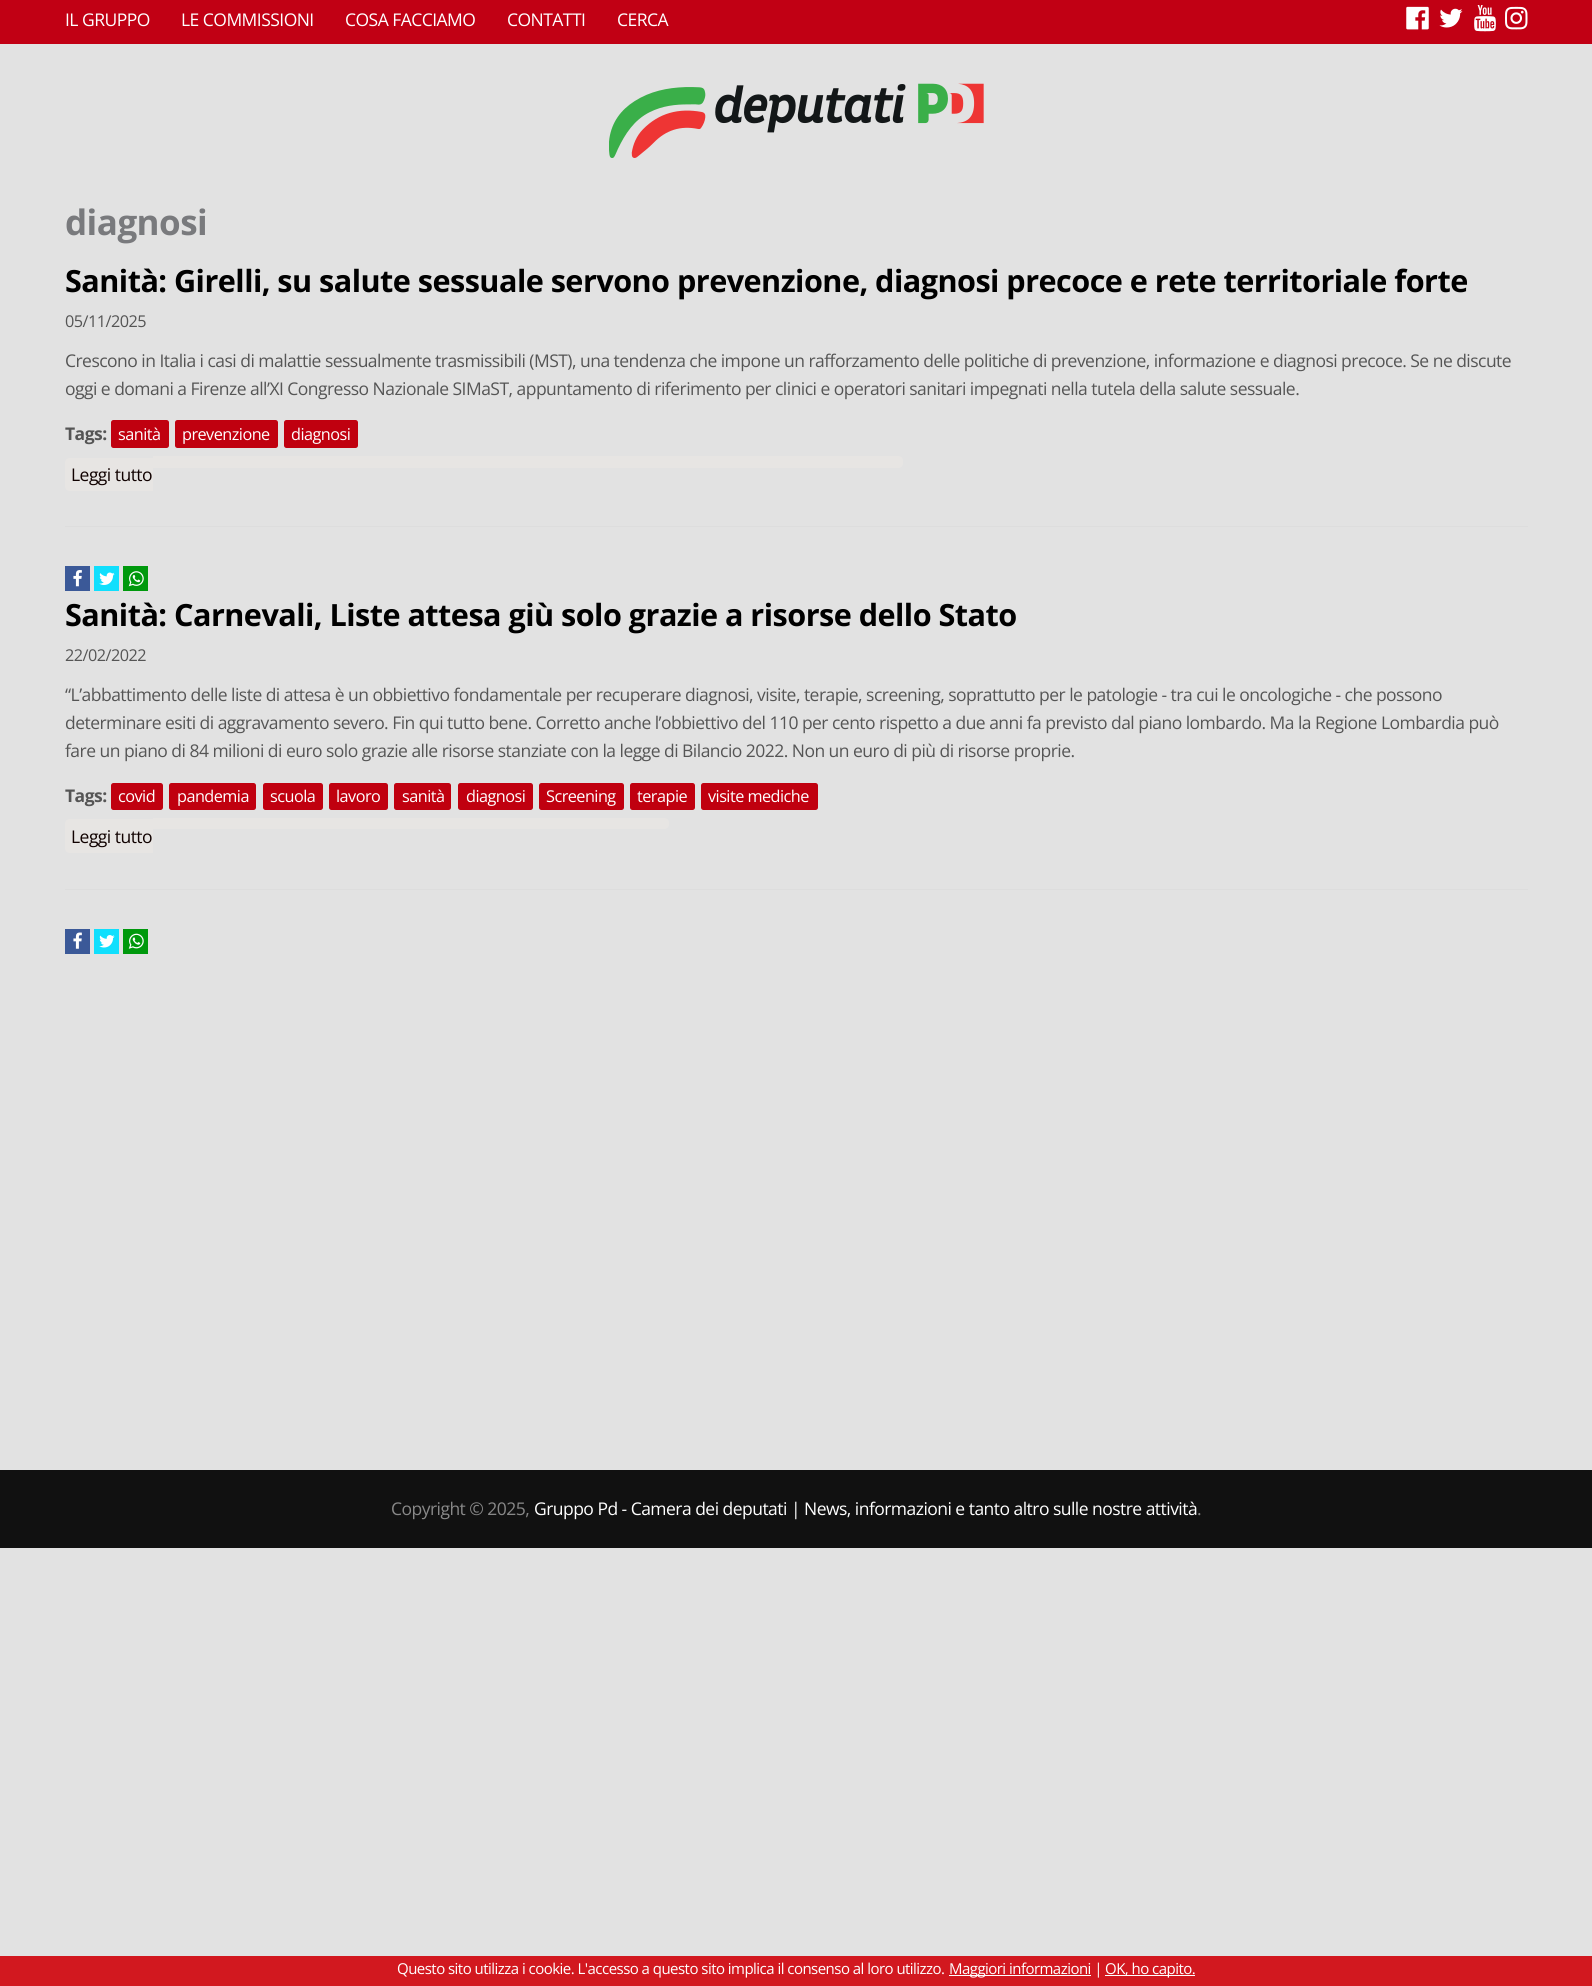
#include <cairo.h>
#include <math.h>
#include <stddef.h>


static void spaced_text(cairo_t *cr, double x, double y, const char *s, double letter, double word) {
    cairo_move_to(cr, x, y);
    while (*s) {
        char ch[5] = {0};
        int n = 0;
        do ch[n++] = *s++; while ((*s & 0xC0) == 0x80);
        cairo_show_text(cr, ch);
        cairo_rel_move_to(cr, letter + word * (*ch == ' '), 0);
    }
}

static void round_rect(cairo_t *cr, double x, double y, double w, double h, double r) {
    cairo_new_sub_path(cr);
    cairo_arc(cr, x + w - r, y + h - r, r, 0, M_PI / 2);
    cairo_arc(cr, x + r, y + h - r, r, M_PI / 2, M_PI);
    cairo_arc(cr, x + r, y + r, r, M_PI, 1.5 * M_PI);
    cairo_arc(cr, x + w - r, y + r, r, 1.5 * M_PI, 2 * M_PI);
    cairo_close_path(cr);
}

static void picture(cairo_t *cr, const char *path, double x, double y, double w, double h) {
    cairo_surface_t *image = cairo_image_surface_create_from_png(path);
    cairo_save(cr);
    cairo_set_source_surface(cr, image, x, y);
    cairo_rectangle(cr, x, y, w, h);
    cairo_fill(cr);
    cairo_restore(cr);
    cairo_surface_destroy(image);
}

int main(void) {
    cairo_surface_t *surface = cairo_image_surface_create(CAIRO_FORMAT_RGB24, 1592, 1986);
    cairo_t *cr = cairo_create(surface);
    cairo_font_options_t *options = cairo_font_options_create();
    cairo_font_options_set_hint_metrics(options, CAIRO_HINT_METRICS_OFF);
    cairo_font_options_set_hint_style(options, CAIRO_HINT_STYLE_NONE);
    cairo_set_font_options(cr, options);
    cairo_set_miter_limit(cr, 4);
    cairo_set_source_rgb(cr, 0.886, 0.886, 0.886);
    cairo_paint(cr);
    cairo_set_source_rgb(cr, 0.757, 0, 0.082);
    cairo_rectangle(cr, 0, 0, 1592, 44);
    cairo_fill(cr);
    cairo_select_font_face(cr, "Open Sans", CAIRO_FONT_SLANT_NORMAL, CAIRO_FONT_WEIGHT_NORMAL);
    cairo_set_font_size(cr, 17.5);
    cairo_set_source_rgb(cr, 1, 1, 1);
    spaced_text(cr, 65, 26, "IL GRUPPO", -0.53, 0);
    spaced_text(cr, 181, 26, "LE COMMISSIONI", -0.53, 0);
    spaced_text(cr, 345, 26, "COSA FACCIAMO", -0.53, 0);
    spaced_text(cr, 507, 26, "CONTATTI", -0.53, 0);
    spaced_text(cr, 617, 26, "CERCA", -0.53, 0);
    picture(cr, "img1.png", 1406, 6, 23, 24);
    picture(cr, "img2.png", 1439, 8, 24, 20);
    picture(cr, "img3.png", 1474, 5, 22, 27);
    picture(cr, "img4.png", 1505, 6, 23, 24);
    picture(cr, "img5.png", 609, 83, 375, 75);
    cairo_select_font_face(cr, "Open Sans", CAIRO_FONT_SLANT_NORMAL, CAIRO_FONT_WEIGHT_BOLD);
    cairo_set_font_size(cr, 35);
    cairo_set_source_rgb(cr, 0.475, 0.478, 0.49);
    spaced_text(cr, 65, 235, "diagnosi", -0.53, 0);
    cairo_set_source_rgb(cr, 0.867, 0.867, 0.867);
    cairo_rectangle(cr, 65, 526, 1463, 1);
    cairo_fill(cr);
    cairo_set_font_size(cr, 30.6);
    cairo_set_source_rgb(cr, 0, 0, 0);
    spaced_text(cr, 65, 292, "Sanità: Girelli, su salute sessuale servono prevenzione, diagnosi precoce e rete territoriale forte", -0.53, 0);
    cairo_select_font_face(cr, "Open Sans", CAIRO_FONT_SLANT_NORMAL, CAIRO_FONT_WEIGHT_NORMAL);
    cairo_set_font_size(cr, 16.25);
    cairo_set_source_rgb(cr, 0.333, 0.333, 0.333);
    spaced_text(cr, 65, 327, "05/11/2025", -0.53, 0);
    cairo_set_font_size(cr, 17.5);
    spaced_text(cr, 65, 367, "Crescono in Italia i casi di malattie sessualmente trasmissibili (MST), una tendenza che impone un rafforzamento delle politiche di prevenzione, informazione e diagnosi precoce. Se ne discute", -0.53, 0);
    spaced_text(cr, 65, 395, "oggi e domani a Firenze all’XI Congresso Nazionale SIMaST, appuntamento di riferimento per clinici e operatori sanitari impegnati nella tutela della salute sessuale.", -0.53, 0);
    cairo_select_font_face(cr, "Open Sans", CAIRO_FONT_SLANT_NORMAL, CAIRO_FONT_WEIGHT_BOLD);
    spaced_text(cr, 65, 440, "Tags:", -0.53, 0);
    cairo_set_source_rgb(cr, 0.753, 0, 0.059);
    round_rect(cr, 111, 420, 58, 28, 2.5);
    cairo_fill(cr);
    cairo_select_font_face(cr, "Open Sans", CAIRO_FONT_SLANT_NORMAL, CAIRO_FONT_WEIGHT_NORMAL);
    cairo_set_font_size(cr, 16.25);
    cairo_set_source_rgb(cr, 1, 1, 1);
    spaced_text(cr, 118, 440, "sanità", -0.53, 0);
    cairo_set_source_rgb(cr, 0.753, 0, 0.059);
    round_rect(cr, 175, 420, 103, 28, 2.5);
    cairo_fill(cr);
    cairo_set_source_rgb(cr, 1, 1, 1);
    spaced_text(cr, 182, 440, "prevenzione", -0.53, 0);
    cairo_set_source_rgb(cr, 0.753, 0, 0.059);
    round_rect(cr, 284, 420, 74, 28, 2.5);
    cairo_fill(cr);
    cairo_set_source_rgb(cr, 1, 1, 1);
    spaced_text(cr, 291, 440, "diagnosi", -0.53, 0);
    cairo_set_source_rgb(cr, 0.906, 0.898, 0.89);
    cairo_new_path(cr);
    cairo_move_to(cr, 70, 458);
    cairo_line_to(cr, 153, 458);
    cairo_line_to(cr, 153, 491);
    cairo_line_to(cr, 70, 491);
    cairo_curve_to(cr, 67, 491, 65, 489, 65, 486);
    cairo_line_to(cr, 65, 463);
    cairo_curve_to(cr, 65, 460, 67, 458, 70, 458);
    cairo_close_path(cr);
    cairo_fill(cr);
    cairo_set_font_size(cr, 17.5);
    cairo_set_source_rgb(cr, 0.063, 0.004, 0);
    spaced_text(cr, 71, 481, "Leggi tutto", -0.53, 0);
    cairo_set_source_rgb(cr, 0.906, 0.898, 0.89);
    cairo_new_path(cr);
    cairo_move_to(cr, 153, 456);
    cairo_line_to(cr, 898, 456);
    cairo_curve_to(cr, 901, 456, 903, 458, 903, 461);
    cairo_line_to(cr, 903, 463);
    cairo_curve_to(cr, 903, 466, 901, 468, 898, 468);
    cairo_line_to(cr, 153, 468);
    cairo_close_path(cr);
    cairo_fill(cr);
    cairo_set_source_rgb(cr, 0.231, 0.349, 0.596);
    cairo_rectangle(cr, 65, 566, 25, 25);
    cairo_fill(cr);
    picture(cr, "img6.png", 73, 570, 9, 17);
    cairo_set_source_rgb(cr, 0.063, 0.875, 0.992);
    cairo_rectangle(cr, 94, 566, 25, 25);
    cairo_fill(cr);
    picture(cr, "img7.png", 99, 572, 16, 13);
    cairo_set_source_rgb(cr, 0, 0.6, 0.051);
    cairo_rectangle(cr, 123, 566, 25, 25);
    cairo_fill(cr);
    picture(cr, "img8.png", 128, 571, 16, 16);
    cairo_set_source_rgb(cr, 0.867, 0.867, 0.867);
    cairo_rectangle(cr, 65, 889, 1463, 1);
    cairo_fill(cr);
    cairo_select_font_face(cr, "Open Sans", CAIRO_FONT_SLANT_NORMAL, CAIRO_FONT_WEIGHT_BOLD);
    cairo_set_font_size(cr, 30.6);
    cairo_set_source_rgb(cr, 0, 0, 0);
    spaced_text(cr, 65, 626, "Sanità: Carnevali, Liste attesa giù solo grazie a risorse dello Stato", -0.53, 0);
    cairo_select_font_face(cr, "Open Sans", CAIRO_FONT_SLANT_NORMAL, CAIRO_FONT_WEIGHT_NORMAL);
    cairo_set_font_size(cr, 16.25);
    cairo_set_source_rgb(cr, 0.333, 0.333, 0.333);
    spaced_text(cr, 65, 661, "22/02/2022", -0.53, 0);
    cairo_set_font_size(cr, 17.5);
    spaced_text(cr, 65, 701, "“L’abbattimento delle liste di attesa è un obbiettivo fondamentale per recuperare diagnosi, visite, terapie, screening, soprattutto per le patologie - tra cui le oncologiche - che possono", -0.53, 0);
    spaced_text(cr, 65, 729, "determinare esiti di aggravamento severo. Fin qui tutto bene. Corretto anche l’obbiettivo del 110 per cento rispetto a due anni fa previsto dal piano lombardo. Ma la Regione Lombardia può", -0.53, 0);
    spaced_text(cr, 65, 757, "fare un piano di 84 milioni di euro solo grazie alle risorse stanziate con la legge di Bilancio 2022. Non un euro di più di risorse proprie.", -0.53, 0);
    cairo_select_font_face(cr, "Open Sans", CAIRO_FONT_SLANT_NORMAL, CAIRO_FONT_WEIGHT_BOLD);
    spaced_text(cr, 65, 802, "Tags:", -0.53, 0);
    cairo_set_source_rgb(cr, 0.753, 0, 0.059);
    round_rect(cr, 111, 783, 52, 27, 2.5);
    cairo_fill(cr);
    cairo_select_font_face(cr, "Open Sans", CAIRO_FONT_SLANT_NORMAL, CAIRO_FONT_WEIGHT_NORMAL);
    cairo_set_font_size(cr, 16.25);
    cairo_set_source_rgb(cr, 1, 1, 1);
    spaced_text(cr, 118, 802, "covid", -0.53, 0);
    cairo_set_source_rgb(cr, 0.753, 0, 0.059);
    round_rect(cr, 169, 783, 87, 27, 2.5);
    cairo_fill(cr);
    cairo_set_source_rgb(cr, 1, 1, 1);
    spaced_text(cr, 177, 802, "pandemia", -0.53, 0);
    cairo_set_source_rgb(cr, 0.753, 0, 0.059);
    round_rect(cr, 263, 783, 60, 27, 2.5);
    cairo_fill(cr);
    cairo_set_source_rgb(cr, 1, 1, 1);
    spaced_text(cr, 270, 802, "scuola", -0.53, 0);
    cairo_set_source_rgb(cr, 0.753, 0, 0.059);
    round_rect(cr, 329, 783, 59, 27, 2.5);
    cairo_fill(cr);
    cairo_set_source_rgb(cr, 1, 1, 1);
    spaced_text(cr, 336, 802, "lavoro", -0.53, 0);
    cairo_set_source_rgb(cr, 0.753, 0, 0.059);
    round_rect(cr, 394, 783, 57, 27, 2.5);
    cairo_fill(cr);
    cairo_set_source_rgb(cr, 1, 1, 1);
    spaced_text(cr, 402, 802, "sanità", -0.53, 0);
    cairo_set_source_rgb(cr, 0.753, 0, 0.059);
    round_rect(cr, 458, 783, 75, 27, 2.5);
    cairo_fill(cr);
    cairo_set_source_rgb(cr, 1, 1, 1);
    spaced_text(cr, 466, 802, "diagnosi", -0.53, 0);
    cairo_set_source_rgb(cr, 0.753, 0, 0.059);
    round_rect(cr, 539, 783, 85, 27, 2.5);
    cairo_fill(cr);
    cairo_set_source_rgb(cr, 1, 1, 1);
    spaced_text(cr, 546, 802, "Screening", -0.53, 0);
    cairo_set_source_rgb(cr, 0.753, 0, 0.059);
    round_rect(cr, 630, 783, 65, 27, 2.5);
    cairo_fill(cr);
    cairo_set_source_rgb(cr, 1, 1, 1);
    spaced_text(cr, 637, 802, "terapie", -0.53, 0);
    cairo_set_source_rgb(cr, 0.753, 0, 0.059);
    round_rect(cr, 701, 783, 117, 27, 2.5);
    cairo_fill(cr);
    cairo_set_source_rgb(cr, 1, 1, 1);
    spaced_text(cr, 708, 802, "visite mediche", -0.53, 0);
    cairo_set_source_rgb(cr, 0.906, 0.898, 0.89);
    cairo_new_path(cr);
    cairo_move_to(cr, 70, 819);
    cairo_line_to(cr, 153, 819);
    cairo_line_to(cr, 153, 853);
    cairo_line_to(cr, 70, 853);
    cairo_curve_to(cr, 67, 853, 65, 851, 65, 848);
    cairo_line_to(cr, 65, 824);
    cairo_curve_to(cr, 65, 821, 67, 819, 70, 819);
    cairo_close_path(cr);
    cairo_fill(cr);
    cairo_set_font_size(cr, 17.5);
    cairo_set_source_rgb(cr, 0.063, 0.004, 0);
    spaced_text(cr, 71, 843, "Leggi tutto", -0.53, 0);
    cairo_set_source_rgb(cr, 0.906, 0.898, 0.89);
    cairo_new_path(cr);
    cairo_move_to(cr, 153, 818);
    cairo_line_to(cr, 664, 818);
    cairo_curve_to(cr, 667, 818, 669, 820, 669, 823);
    cairo_line_to(cr, 669, 824);
    cairo_curve_to(cr, 669, 827, 667, 829, 664, 829);
    cairo_line_to(cr, 153, 829);
    cairo_close_path(cr);
    cairo_fill(cr);
    cairo_set_source_rgb(cr, 0.231, 0.349, 0.596);
    cairo_rectangle(cr, 65, 929, 25, 25);
    cairo_fill(cr);
    picture(cr, "img9.png", 73, 932, 9, 17);
    cairo_set_source_rgb(cr, 0.063, 0.875, 0.992);
    cairo_rectangle(cr, 94, 929, 25, 25);
    cairo_fill(cr);
    picture(cr, "img10.png", 99, 935, 16, 13);
    cairo_set_source_rgb(cr, 0, 0.6, 0.051);
    cairo_rectangle(cr, 123, 929, 25, 25);
    cairo_fill(cr);
    picture(cr, "img11.png", 128, 933, 16, 16);
    cairo_set_source_rgb(cr, 0.067, 0.067, 0.067);
    cairo_rectangle(cr, 0, 1470, 1592, 78);
    cairo_fill(cr);
    cairo_set_source_rgb(cr, 0.533, 0.533, 0.533);
    spaced_text(cr, 391, 1515, "Copyright © 2025,", -0.53, 0);
    cairo_set_source_rgb(cr, 1, 1, 1);
    spaced_text(cr, 534, 1515, "Gruppo Pd - Camera dei deputati | News, informazioni e tanto altro sulle nostre attività", -0.53, 0);
    cairo_set_source_rgb(cr, 0.533, 0.533, 0.533);
    spaced_text(cr, 1197, 1515, ".", -0.53, 0);
    cairo_set_source_rgb(cr, 0.824, 0.094, 0.122);
    cairo_rectangle(cr, 0, 1956, 1592, 30);
    cairo_fill(cr);
    cairo_set_font_size(cr, 15);
    cairo_set_source_rgb(cr, 1, 1, 1);
    spaced_text(cr, 397, 1974, "Questo sito utilizza i cookie. L'accesso a questo sito implica il consenso al loro utilizzo.", -0.53, 0);
    cairo_rectangle(cr, 949, 1975, 142, 1);
    cairo_fill(cr);
    spaced_text(cr, 949, 1974, "Maggiori informazioni |", -0.53, 0);
    cairo_rectangle(cr, 1105, 1975, 90, 1);
    cairo_fill(cr);
    spaced_text(cr, 1105, 1974, "OK, ho capito.", -0.53, 0);
    cairo_surface_write_to_png(surface, "page.png");
    cairo_font_options_destroy(options);
    cairo_destroy(cr);
    cairo_surface_destroy(surface);
    return 0;
}
